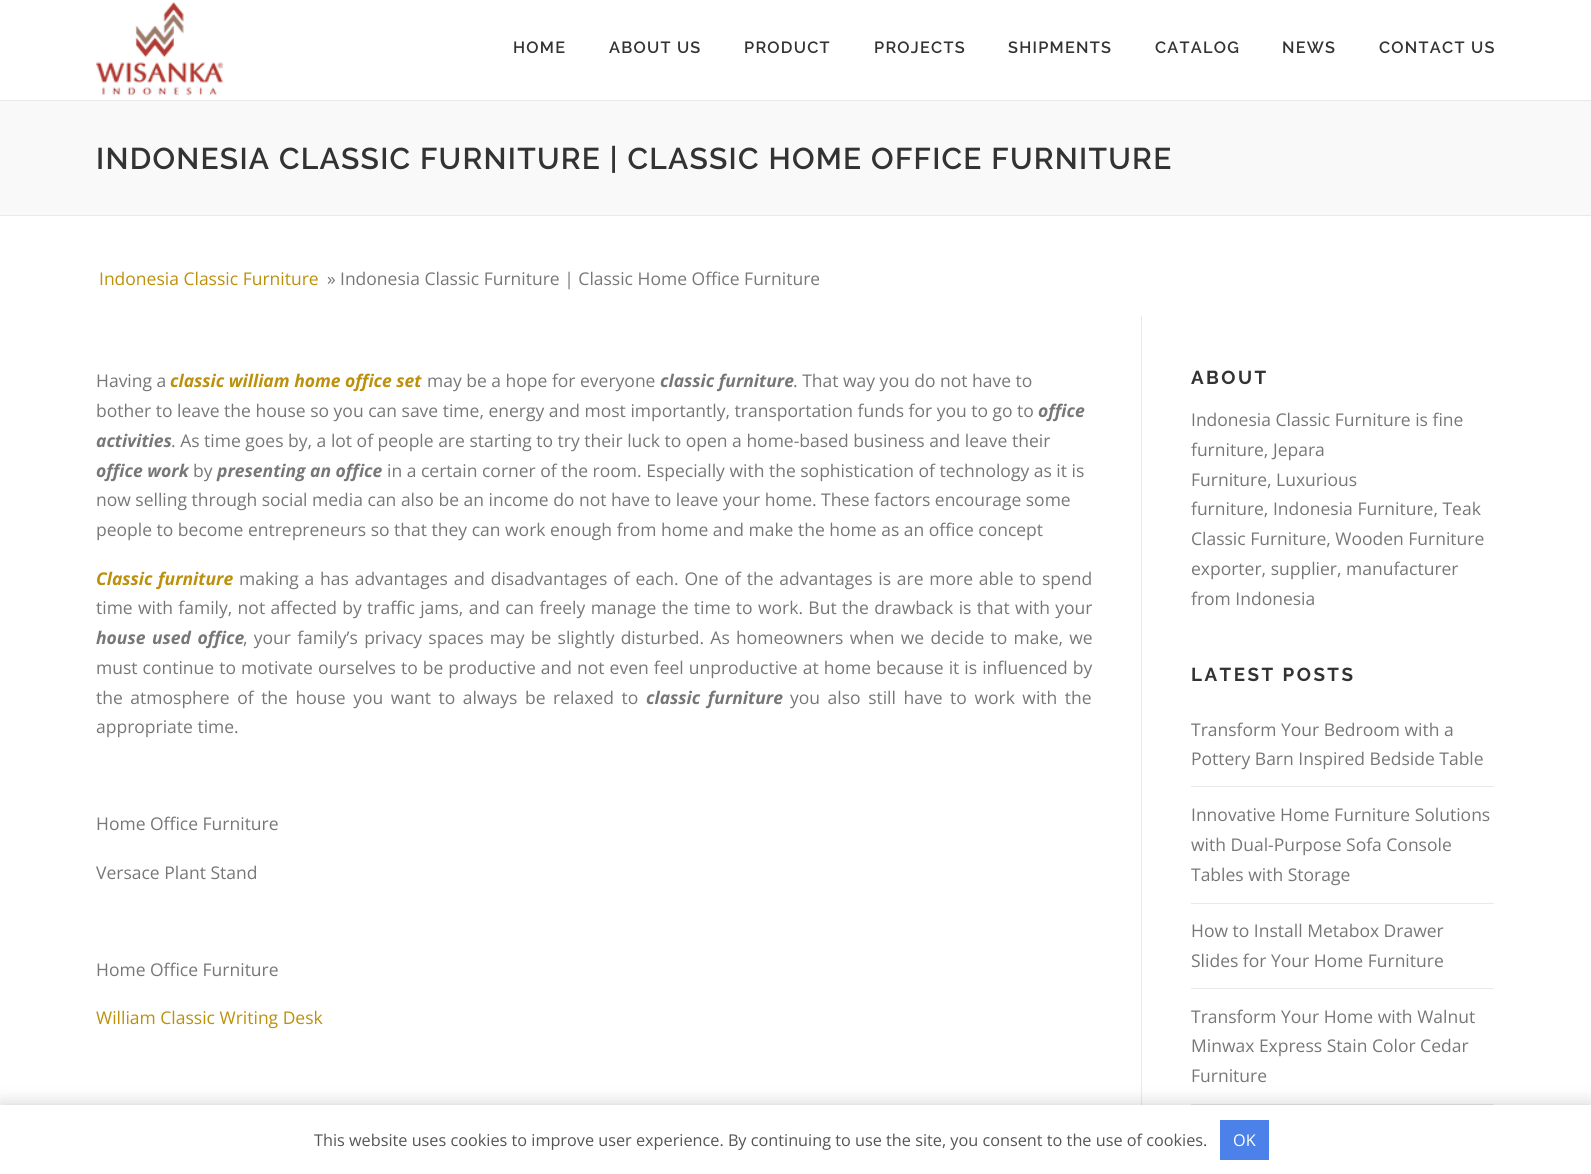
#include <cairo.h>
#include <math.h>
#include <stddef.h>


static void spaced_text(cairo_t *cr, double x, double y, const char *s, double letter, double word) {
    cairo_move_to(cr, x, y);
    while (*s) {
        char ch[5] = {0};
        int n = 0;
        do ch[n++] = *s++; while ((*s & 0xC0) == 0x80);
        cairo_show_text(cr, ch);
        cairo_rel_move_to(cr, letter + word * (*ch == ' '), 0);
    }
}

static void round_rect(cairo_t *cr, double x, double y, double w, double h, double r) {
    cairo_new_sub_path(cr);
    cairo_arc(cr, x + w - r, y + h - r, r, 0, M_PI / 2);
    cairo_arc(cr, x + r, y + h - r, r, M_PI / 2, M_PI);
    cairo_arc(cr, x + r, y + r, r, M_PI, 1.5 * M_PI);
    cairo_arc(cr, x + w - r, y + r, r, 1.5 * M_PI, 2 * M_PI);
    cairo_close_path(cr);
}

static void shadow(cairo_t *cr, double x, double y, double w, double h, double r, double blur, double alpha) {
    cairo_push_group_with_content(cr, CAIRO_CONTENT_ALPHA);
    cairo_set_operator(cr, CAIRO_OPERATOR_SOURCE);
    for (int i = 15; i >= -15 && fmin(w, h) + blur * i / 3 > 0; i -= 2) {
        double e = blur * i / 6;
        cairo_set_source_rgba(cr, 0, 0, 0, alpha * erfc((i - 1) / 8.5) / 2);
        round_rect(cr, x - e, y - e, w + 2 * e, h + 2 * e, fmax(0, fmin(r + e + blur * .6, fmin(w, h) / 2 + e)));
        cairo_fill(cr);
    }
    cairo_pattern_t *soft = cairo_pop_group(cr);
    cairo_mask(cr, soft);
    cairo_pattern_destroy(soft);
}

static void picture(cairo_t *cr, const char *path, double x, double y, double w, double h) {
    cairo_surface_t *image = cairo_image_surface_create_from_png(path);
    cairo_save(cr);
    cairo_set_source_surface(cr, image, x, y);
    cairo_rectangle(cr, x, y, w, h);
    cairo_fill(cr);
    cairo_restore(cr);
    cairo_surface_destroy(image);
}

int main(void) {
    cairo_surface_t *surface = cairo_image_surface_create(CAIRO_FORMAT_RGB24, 1591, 1174);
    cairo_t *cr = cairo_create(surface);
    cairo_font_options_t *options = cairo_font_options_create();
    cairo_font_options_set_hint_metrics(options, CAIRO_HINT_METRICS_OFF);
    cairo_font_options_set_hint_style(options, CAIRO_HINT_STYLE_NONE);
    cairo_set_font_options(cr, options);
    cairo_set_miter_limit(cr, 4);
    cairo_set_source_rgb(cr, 1, 1, 1);
    cairo_paint(cr);
    picture(cr, "img1.png", 96, 2, 128, 94);
    cairo_select_font_face(cr, "Raleway SemiBold", CAIRO_FONT_SLANT_NORMAL, CAIRO_FONT_WEIGHT_NORMAL);
    cairo_set_font_size(cr, 16.25);
    cairo_set_source_rgb(cr, 0.2, 0.2, 0.2);
    spaced_text(cr, 513, 53, "HOME", 1.25, 0);
    spaced_text(cr, 609, 53, "ABOUT US", 1.25, 0);
    spaced_text(cr, 744, 53, "PRODUCT", 1.25, 0);
    spaced_text(cr, 874, 53, "PROJECTS", 1.25, 0);
    spaced_text(cr, 1008, 53, "SHIPMENTS", 1.25, 0);
    spaced_text(cr, 1155, 53, "CATALOG", 1.25, 0);
    spaced_text(cr, 1282, 53, "NEWS", 1.25, 0);
    spaced_text(cr, 1379, 53, "CONTACT US", 1.25, 0);
    cairo_set_source_rgb(cr, 0.973, 0.976, 0.976);
    cairo_rectangle(cr, 0, 101, 1591, 114);
    cairo_fill(cr);
    cairo_set_source_rgb(cr, 0.914, 0.914, 0.914);
    cairo_rectangle(cr, 0, 100, 1591, 1);
    cairo_fill(cr);
    cairo_rectangle(cr, 0, 215, 1591, 1);
    cairo_fill(cr);
    cairo_set_font_size(cr, 30);
    cairo_set_source_rgb(cr, 0.2, 0.2, 0.2);
    spaced_text(cr, 96, 169, "INDONESIA CLASSIC FURNITURE | CLASSIC HOME OFFICE FURNITURE", 1.25, 0);
    cairo_select_font_face(cr, "Open Sans", CAIRO_FONT_SLANT_NORMAL, CAIRO_FONT_WEIGHT_NORMAL);
    cairo_set_font_size(cr, 17.5);
    cairo_set_source_rgb(cr, 0.737, 0.565, 0.043);
    cairo_move_to(cr, 99, 285);
    cairo_show_text(cr, "Indonesia Classic Furniture");
    cairo_set_source_rgb(cr, 0.467, 0.467, 0.467);
    cairo_move_to(cr, 327, 285);
    cairo_show_text(cr, "»");
    cairo_move_to(cr, 340, 285);
    cairo_show_text(cr, "Indonesia Classic Furniture | Classic Home Office Furniture");
    cairo_set_source_rgb(cr, 0.914, 0.914, 0.914);
    cairo_rectangle(cr, 1141, 316, 1, 789);
    cairo_fill(cr);
    cairo_set_source_rgb(cr, 0.467, 0.467, 0.467);
    cairo_move_to(cr, 96, 387);
    cairo_show_text(cr, "Having a");
    cairo_select_font_face(cr, "Open Sans", CAIRO_FONT_SLANT_ITALIC, CAIRO_FONT_WEIGHT_BOLD);
    cairo_set_source_rgb(cr, 0.737, 0.565, 0.043);
    cairo_move_to(cr, 170, 387);
    cairo_show_text(cr, "classic william home office set");
    cairo_select_font_face(cr, "Open Sans", CAIRO_FONT_SLANT_NORMAL, CAIRO_FONT_WEIGHT_NORMAL);
    cairo_set_source_rgb(cr, 0.467, 0.467, 0.467);
    cairo_move_to(cr, 427, 387);
    cairo_show_text(cr, "may be a hope for everyone");
    cairo_select_font_face(cr, "Open Sans", CAIRO_FONT_SLANT_ITALIC, CAIRO_FONT_WEIGHT_BOLD);
    cairo_move_to(cr, 660, 387);
    cairo_show_text(cr, "classic furniture");
    cairo_select_font_face(cr, "Open Sans", CAIRO_FONT_SLANT_NORMAL, CAIRO_FONT_WEIGHT_NORMAL);
    cairo_move_to(cr, 793, 387);
    cairo_show_text(cr, ". That way you do not have to");
    cairo_move_to(cr, 96, 417);
    cairo_show_text(cr, "bother to leave the house so you can save time, energy and most importantly, transportation funds for you to go to");
    cairo_select_font_face(cr, "Open Sans", CAIRO_FONT_SLANT_ITALIC, CAIRO_FONT_WEIGHT_BOLD);
    cairo_move_to(cr, 1038, 417);
    cairo_show_text(cr, "office");
    cairo_move_to(cr, 96, 447);
    cairo_show_text(cr, "activities");
    cairo_select_font_face(cr, "Open Sans", CAIRO_FONT_SLANT_NORMAL, CAIRO_FONT_WEIGHT_NORMAL);
    cairo_move_to(cr, 171, 447);
    cairo_show_text(cr, ". As time goes by, a lot of people are starting to try their luck to open a home-based business and leave their");
    cairo_select_font_face(cr, "Open Sans", CAIRO_FONT_SLANT_ITALIC, CAIRO_FONT_WEIGHT_BOLD);
    cairo_move_to(cr, 96, 477);
    cairo_show_text(cr, "office work");
    cairo_select_font_face(cr, "Open Sans", CAIRO_FONT_SLANT_NORMAL, CAIRO_FONT_WEIGHT_NORMAL);
    cairo_move_to(cr, 193, 477);
    cairo_show_text(cr, "by");
    cairo_select_font_face(cr, "Open Sans", CAIRO_FONT_SLANT_ITALIC, CAIRO_FONT_WEIGHT_BOLD);
    cairo_move_to(cr, 217, 477);
    cairo_show_text(cr, "presenting an office");
    cairo_select_font_face(cr, "Open Sans", CAIRO_FONT_SLANT_NORMAL, CAIRO_FONT_WEIGHT_NORMAL);
    cairo_move_to(cr, 387, 477);
    cairo_show_text(cr, "in a certain corner of the room. Especially with the sophistication of technology as it is");
    cairo_move_to(cr, 96, 506);
    cairo_show_text(cr, "now selling through social media can also be an income do not have to leave your home. These factors encourage some");
    cairo_move_to(cr, 96, 536);
    cairo_show_text(cr, "people to become entrepreneurs so that they can work enough from home and make the home as an office concept");
    cairo_select_font_face(cr, "Open Sans", CAIRO_FONT_SLANT_ITALIC, CAIRO_FONT_WEIGHT_BOLD);
    cairo_set_source_rgb(cr, 0.737, 0.565, 0.043);
    spaced_text(cr, 96, 585, "Classic furniture", 0, 1);
    cairo_select_font_face(cr, "Open Sans", CAIRO_FONT_SLANT_NORMAL, CAIRO_FONT_WEIGHT_NORMAL);
    cairo_set_source_rgb(cr, 0.467, 0.467, 0.467);
    spaced_text(cr, 239, 585, "making a has advantages and disadvantages of each. One of the advantages is are more able to spend", 0, 1.25);
    spaced_text(cr, 96, 614, "time with family, not affected by traffic jams, and can freely manage the time to work. But the drawback is that with your", 0, 0.8);
    cairo_select_font_face(cr, "Open Sans", CAIRO_FONT_SLANT_ITALIC, CAIRO_FONT_WEIGHT_BOLD);
    spaced_text(cr, 96, 644, "house used office", 0, 2);
    cairo_select_font_face(cr, "Open Sans", CAIRO_FONT_SLANT_NORMAL, CAIRO_FONT_WEIGHT_NORMAL);
    spaced_text(cr, 243, 644, ", your family’s privacy spaces may be slightly disturbed. As homeowners when we decide to make, we", 0, 1.7);
    spaced_text(cr, 96, 674, "must continue to motivate ourselves to be productive and not even feel unproductive at home because it is influenced by", 0, 0.5);
    spaced_text(cr, 96, 704, "the atmosphere of the house you want to always be relaxed to", 0, 3);
    cairo_select_font_face(cr, "Open Sans", CAIRO_FONT_SLANT_ITALIC, CAIRO_FONT_WEIGHT_BOLD);
    spaced_text(cr, 646, 704, "classic furniture", 0, 3);
    cairo_select_font_face(cr, "Open Sans", CAIRO_FONT_SLANT_NORMAL, CAIRO_FONT_WEIGHT_NORMAL);
    spaced_text(cr, 790, 704, "you also still have to work with the", 0, 3);
    cairo_move_to(cr, 96, 733);
    cairo_show_text(cr, "appropriate time.");
    cairo_move_to(cr, 96, 830);
    cairo_show_text(cr, "Home Office Furniture");
    cairo_move_to(cr, 96, 879);
    cairo_show_text(cr, "Versace Plant Stand");
    cairo_move_to(cr, 96, 976);
    cairo_show_text(cr, "Home Office Furniture");
    cairo_set_source_rgb(cr, 0.737, 0.565, 0.043);
    cairo_move_to(cr, 96, 1024);
    cairo_show_text(cr, "William Classic Writing Desk");
    cairo_select_font_face(cr, "Raleway", CAIRO_FONT_SLANT_NORMAL, CAIRO_FONT_WEIGHT_BOLD);
    cairo_set_font_size(cr, 18.75);
    cairo_set_source_rgb(cr, 0.2, 0.2, 0.2);
    spaced_text(cr, 1191, 384, "ABOUT", 2.5, 0);
    cairo_select_font_face(cr, "Open Sans", CAIRO_FONT_SLANT_NORMAL, CAIRO_FONT_WEIGHT_NORMAL);
    cairo_set_font_size(cr, 17.5);
    cairo_set_source_rgb(cr, 0.467, 0.467, 0.467);
    cairo_move_to(cr, 1191, 426);
    cairo_show_text(cr, "Indonesia Classic Furniture is fine");
    cairo_move_to(cr, 1191, 456);
    cairo_show_text(cr, "furniture, Jepara");
    cairo_move_to(cr, 1191, 486);
    cairo_show_text(cr, "Furniture, Luxurious");
    cairo_move_to(cr, 1191, 515);
    cairo_show_text(cr, "furniture, Indonesia Furniture, Teak");
    cairo_move_to(cr, 1191, 545);
    cairo_show_text(cr, "Classic Furniture, Wooden Furniture");
    cairo_move_to(cr, 1191, 575);
    cairo_show_text(cr, "exporter, supplier, manufacturer");
    cairo_move_to(cr, 1191, 605);
    cairo_show_text(cr, "from Indonesia");
    cairo_select_font_face(cr, "Raleway", CAIRO_FONT_SLANT_NORMAL, CAIRO_FONT_WEIGHT_BOLD);
    cairo_set_font_size(cr, 18.75);
    cairo_set_source_rgb(cr, 0.2, 0.2, 0.2);
    spaced_text(cr, 1191, 681, "LATEST POSTS", 2.5, 0);
    cairo_set_source_rgb(cr, 0.914, 0.914, 0.914);
    cairo_rectangle(cr, 1191, 786, 303, 1);
    cairo_fill(cr);
    cairo_select_font_face(cr, "Open Sans", CAIRO_FONT_SLANT_NORMAL, CAIRO_FONT_WEIGHT_NORMAL);
    cairo_set_font_size(cr, 17.5);
    cairo_set_source_rgb(cr, 0.467, 0.467, 0.467);
    cairo_move_to(cr, 1191, 736);
    cairo_show_text(cr, "Transform Your Bedroom with a");
    cairo_move_to(cr, 1191, 765);
    cairo_show_text(cr, "Pottery Barn Inspired Bedside Table");
    cairo_set_source_rgb(cr, 0.914, 0.914, 0.914);
    cairo_rectangle(cr, 1191, 903, 303, 1);
    cairo_fill(cr);
    cairo_set_source_rgb(cr, 0.467, 0.467, 0.467);
    cairo_move_to(cr, 1191, 821);
    cairo_show_text(cr, "Innovative Home Furniture Solutions");
    cairo_move_to(cr, 1191, 851);
    cairo_show_text(cr, "with Dual-Purpose Sofa Console");
    cairo_move_to(cr, 1191, 881);
    cairo_show_text(cr, "Tables with Storage");
    cairo_set_source_rgb(cr, 0.914, 0.914, 0.914);
    cairo_rectangle(cr, 1191, 988, 303, 1);
    cairo_fill(cr);
    cairo_set_source_rgb(cr, 0.467, 0.467, 0.467);
    cairo_move_to(cr, 1191, 937);
    cairo_show_text(cr, "How to Install Metabox Drawer");
    cairo_move_to(cr, 1191, 967);
    cairo_show_text(cr, "Slides for Your Home Furniture");
    cairo_set_source_rgb(cr, 0.914, 0.914, 0.914);
    cairo_rectangle(cr, 1191, 1104, 303, 1);
    cairo_fill(cr);
    cairo_set_source_rgb(cr, 0.467, 0.467, 0.467);
    cairo_move_to(cr, 1191, 1023);
    cairo_show_text(cr, "Transform Your Home with Walnut");
    cairo_move_to(cr, 1191, 1052);
    cairo_show_text(cr, "Minwax Express Stain Color Cedar");
    cairo_move_to(cr, 1191, 1082);
    cairo_show_text(cr, "Furniture");
    cairo_set_source_rgb(cr, 0, 0, 0);
    shadow(cr, 0, 1105, 1591, 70, 0, 9.5, 0.2);
    cairo_set_source_rgb(cr, 1, 1, 1);
    cairo_rectangle(cr, 0, 1105, 1591, 69);
    cairo_fill(cr);
    cairo_set_font_size(cr, 16.25);
    cairo_set_source_rgb(cr, 0.333, 0.333, 0.333);
    cairo_move_to(cr, 314, 1146);
    cairo_show_text(cr, "This website uses cookies to improve user experience. By continuing to use the site, you consent to the use of cookies.");
    cairo_set_source_rgb(cr, 0.294, 0.506, 0.91);
    cairo_rectangle(cr, 1220, 1120, 49, 40);
    cairo_fill(cr);
    cairo_set_source_rgb(cr, 1, 1, 1);
    cairo_move_to(cr, 1233, 1146);
    cairo_show_text(cr, "OK");
    cairo_surface_write_to_png(surface, "page.png");
    cairo_font_options_destroy(options);
    cairo_destroy(cr);
    cairo_surface_destroy(surface);
    return 0;
}
